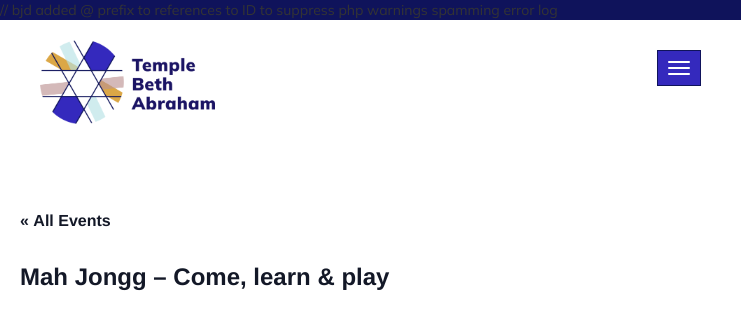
#include <cairo.h>
#include <math.h>
#include <stddef.h>


static void round_rect(cairo_t *cr, double x, double y, double w, double h, double r) {
    cairo_new_sub_path(cr);
    cairo_arc(cr, x + w - r, y + h - r, r, 0, M_PI / 2);
    cairo_arc(cr, x + r, y + h - r, r, M_PI / 2, M_PI);
    cairo_arc(cr, x + r, y + r, r, M_PI, 1.5 * M_PI);
    cairo_arc(cr, x + w - r, y + r, r, 1.5 * M_PI, 2 * M_PI);
    cairo_close_path(cr);
}

static void picture(cairo_t *cr, const char *path, double x, double y, double w, double h) {
    cairo_surface_t *image = cairo_image_surface_create_from_png(path);
    cairo_save(cr);
    cairo_set_source_surface(cr, image, x, y);
    cairo_rectangle(cr, x, y, w, h);
    cairo_fill(cr);
    cairo_restore(cr);
    cairo_surface_destroy(image);
}

int main(void) {
    cairo_surface_t *surface = cairo_image_surface_create(CAIRO_FORMAT_RGB24, 741, 335);
    cairo_t *cr = cairo_create(surface);
    cairo_font_options_t *options = cairo_font_options_create();
    cairo_font_options_set_hint_metrics(options, CAIRO_HINT_METRICS_OFF);
    cairo_font_options_set_hint_style(options, CAIRO_HINT_STYLE_NONE);
    cairo_set_font_options(cr, options);
    cairo_set_miter_limit(cr, 4);
    cairo_set_source_rgb(cr, 0.059, 0.078, 0.357);
    cairo_paint(cr);
    cairo_select_font_face(cr, "Mulish", CAIRO_FONT_SLANT_NORMAL, CAIRO_FONT_WEIGHT_NORMAL);
    cairo_set_font_size(cr, 14);
    cairo_set_source_rgb(cr, 0.2, 0.2, 0.2);
    cairo_move_to(cr, 0, 15);
    cairo_show_text(cr, "// bjd added @ prefix to references to ID to suppress php warnings spamming error log");
    cairo_set_source_rgb(cr, 1, 1, 1);
    cairo_rectangle(cr, 0, 20, 741, 315);
    cairo_fill(cr);
    picture(cr, "img1.png", 40, 40, 175, 84);
    cairo_set_source_rgb(cr, 0.204, 0.161, 0.741);
    cairo_rectangle(cr, 657.5, 50.5, 43, 35);
    cairo_fill_preserve(cr);
    cairo_set_source_rgb(cr, 0.059, 0.078, 0.357);
    cairo_set_line_width(cr, 1);
    cairo_stroke(cr);
    cairo_set_source_rgb(cr, 1, 1, 1);
    round_rect(cr, 668, 61, 22, 2, 1);
    cairo_fill(cr);
    round_rect(cr, 668, 67, 22, 2, 1);
    cairo_fill(cr);
    round_rect(cr, 668, 73, 22, 2, 1);
    cairo_fill(cr);
    cairo_select_font_face(cr, "Liberation Sans", CAIRO_FONT_SLANT_NORMAL, CAIRO_FONT_WEIGHT_BOLD);
    cairo_set_font_size(cr, 16);
    cairo_set_source_rgb(cr, 0.078, 0.094, 0.153);
    cairo_move_to(cr, 20, 226);
    cairo_show_text(cr, "« All Events");
    cairo_set_font_size(cr, 24);
    cairo_move_to(cr, 20, 285);
    cairo_show_text(cr, "Mah Jongg – Come, learn & play");
    cairo_surface_write_to_png(surface, "page.png");
    cairo_font_options_destroy(options);
    cairo_destroy(cr);
    cairo_surface_destroy(surface);
    return 0;
}
